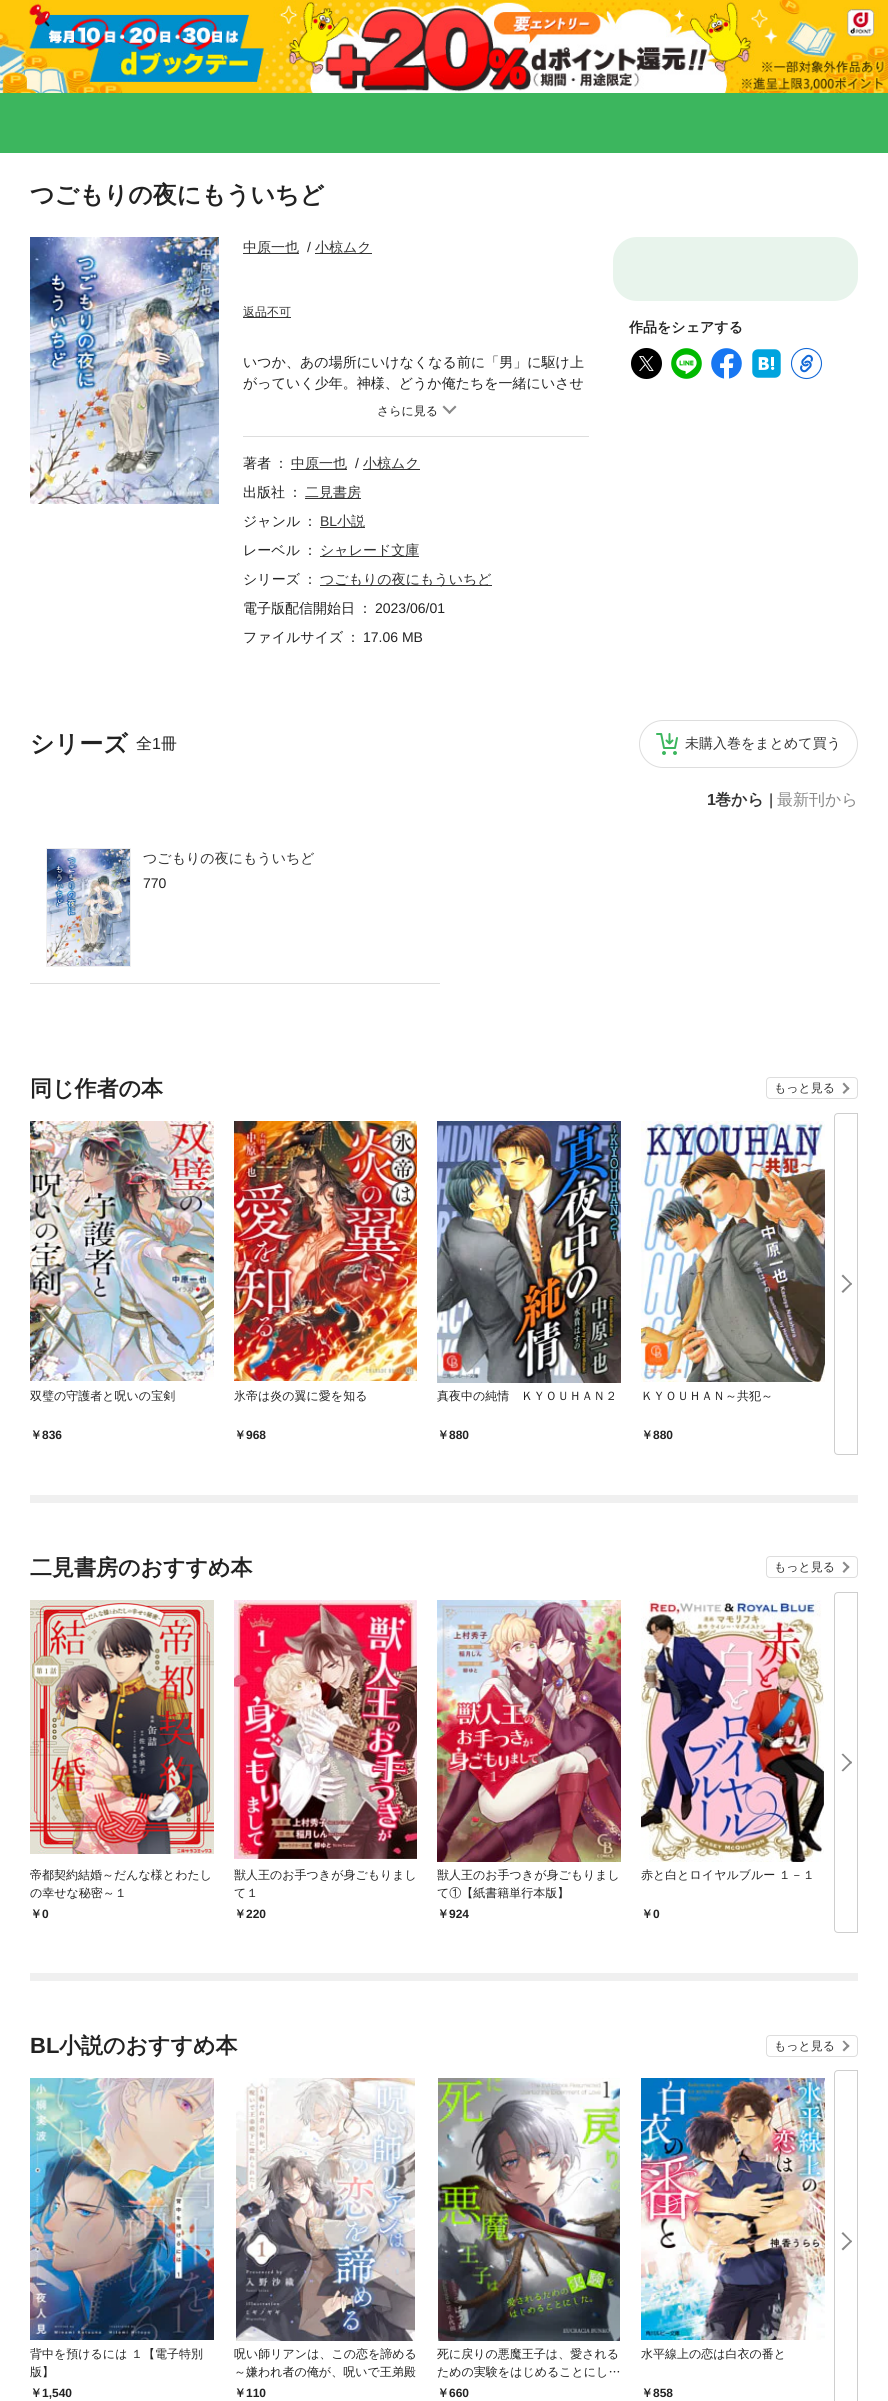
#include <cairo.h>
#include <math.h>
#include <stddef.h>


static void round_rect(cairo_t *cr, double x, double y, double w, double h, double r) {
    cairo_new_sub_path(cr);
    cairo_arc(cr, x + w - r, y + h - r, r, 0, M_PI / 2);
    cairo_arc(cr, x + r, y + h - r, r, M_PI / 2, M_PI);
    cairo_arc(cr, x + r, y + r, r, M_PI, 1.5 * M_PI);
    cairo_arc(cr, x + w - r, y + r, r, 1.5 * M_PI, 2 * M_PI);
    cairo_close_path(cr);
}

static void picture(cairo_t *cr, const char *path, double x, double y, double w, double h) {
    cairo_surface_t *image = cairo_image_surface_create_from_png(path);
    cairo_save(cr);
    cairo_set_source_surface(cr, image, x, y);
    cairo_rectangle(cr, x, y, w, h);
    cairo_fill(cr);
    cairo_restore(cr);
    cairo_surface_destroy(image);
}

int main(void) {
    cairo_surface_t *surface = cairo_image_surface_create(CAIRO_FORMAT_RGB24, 888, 2401);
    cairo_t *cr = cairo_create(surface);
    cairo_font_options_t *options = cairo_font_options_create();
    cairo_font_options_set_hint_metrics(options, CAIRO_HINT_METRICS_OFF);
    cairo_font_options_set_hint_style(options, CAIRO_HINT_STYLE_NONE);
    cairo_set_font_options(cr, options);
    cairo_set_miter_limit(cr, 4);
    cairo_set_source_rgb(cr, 1, 1, 1);
    cairo_paint(cr);
    picture(cr, "img1.png", 0, 0, 888, 93);
    cairo_set_source_rgb(cr, 0.235, 0.714, 0.369);
    cairo_rectangle(cr, 0, 93, 888, 60);
    cairo_fill(cr);
    cairo_select_font_face(cr, "WenQuanYi Zen Hei", CAIRO_FONT_SLANT_NORMAL, CAIRO_FONT_WEIGHT_BOLD);
    cairo_set_font_size(cr, 24);
    cairo_set_source_rgb(cr, 0.133, 0.133, 0.133);
    cairo_move_to(cr, 30, 203);
    cairo_show_text(cr, "つごもりの夜にもういちど");
    picture(cr, "img2.png", 30, 237, 189, 267);
    cairo_set_source_rgb(cr, 0.2, 0.2, 0.2);
    cairo_rectangle(cr, 243, 253, 56, 1);
    cairo_fill(cr);
    cairo_select_font_face(cr, "WenQuanYi Zen Hei Medium", CAIRO_FONT_SLANT_NORMAL, CAIRO_FONT_WEIGHT_NORMAL);
    cairo_set_font_size(cr, 14);
    cairo_move_to(cr, 243, 252);
    cairo_show_text(cr, "中原一也");
    cairo_select_font_face(cr, "Liberation Sans", CAIRO_FONT_SLANT_NORMAL, CAIRO_FONT_WEIGHT_NORMAL);
    cairo_set_source_rgb(cr, 0.133, 0.133, 0.133);
    cairo_move_to(cr, 307, 252);
    cairo_show_text(cr, "/");
    cairo_set_source_rgb(cr, 0.2, 0.2, 0.2);
    cairo_rectangle(cr, 315, 253, 57, 1);
    cairo_fill(cr);
    cairo_select_font_face(cr, "WenQuanYi Zen Hei Medium", CAIRO_FONT_SLANT_NORMAL, CAIRO_FONT_WEIGHT_NORMAL);
    cairo_move_to(cr, 315, 252);
    cairo_show_text(cr, "小椋ムク");
    cairo_rectangle(cr, 243, 317, 48, 1);
    cairo_fill(cr);
    cairo_set_font_size(cr, 12);
    cairo_move_to(cr, 243, 316);
    cairo_show_text(cr, "返品不可");
    cairo_set_source_rgb(cr, 0.91, 0.957, 0.925);
    round_rect(cr, 613, 237, 245, 64, 24);
    cairo_fill(cr);
    cairo_select_font_face(cr, "WenQuanYi Zen Hei", CAIRO_FONT_SLANT_NORMAL, CAIRO_FONT_WEIGHT_BOLD);
    cairo_set_font_size(cr, 14);
    cairo_set_source_rgb(cr, 0.133, 0.133, 0.133);
    cairo_move_to(cr, 629, 332);
    cairo_show_text(cr, "作品をシェアする");
    picture(cr, "img3.png", 631, 348, 31, 31);
    picture(cr, "img4.png", 671, 348, 31, 31);
    picture(cr, "img5.png", 711, 348, 31, 31);
    picture(cr, "img6.png", 752, 349, 29, 29);
    picture(cr, "img7.png", 790, 347, 33, 33);
    cairo_set_source_rgb(cr, 0.867, 0.867, 0.867);
    cairo_rectangle(cr, 243, 436, 346, 1);
    cairo_fill(cr);
    cairo_select_font_face(cr, "WenQuanYi Zen Hei Medium", CAIRO_FONT_SLANT_NORMAL, CAIRO_FONT_WEIGHT_NORMAL);
    cairo_set_source_rgb(cr, 0.133, 0.133, 0.133);
    cairo_move_to(cr, 243, 367);
    cairo_show_text(cr, "いつか、あの場所にいけなくなる前に「男」に駆け上");
    cairo_move_to(cr, 243, 388);
    cairo_show_text(cr, "がっていく少年。神様、どうか俺たちを一緒にいさせ");
    cairo_set_font_size(cr, 12);
    cairo_move_to(cr, 377, 415);
    cairo_show_text(cr, "さらに見る");
    cairo_set_source_rgb(cr, 0.533, 0.533, 0.533);
    cairo_new_path(cr);
    cairo_move_to(cr, 456.5, 407);
    cairo_line_to(cr, 449.5, 414);
    cairo_line_to(cr, 448, 412.5);
    cairo_line_to(cr, 455, 405.5);
    cairo_close_path(cr);
    cairo_fill(cr);
    cairo_new_path(cr);
    cairo_move_to(cr, 451, 412.5);
    cairo_line_to(cr, 449.5, 414);
    cairo_line_to(cr, 442.5, 407);
    cairo_line_to(cr, 444, 405.5);
    cairo_close_path(cr);
    cairo_fill(cr);
    cairo_set_font_size(cr, 14);
    cairo_set_source_rgb(cr, 0.133, 0.133, 0.133);
    cairo_move_to(cr, 243, 468);
    cairo_show_text(cr, "著者");
    cairo_move_to(cr, 274, 468);
    cairo_show_text(cr, "：");
    cairo_set_source_rgb(cr, 0.2, 0.2, 0.2);
    cairo_rectangle(cr, 291, 469, 56, 1);
    cairo_fill(cr);
    cairo_move_to(cr, 291, 468);
    cairo_show_text(cr, "中原一也");
    cairo_select_font_face(cr, "Liberation Sans", CAIRO_FONT_SLANT_NORMAL, CAIRO_FONT_WEIGHT_NORMAL);
    cairo_set_source_rgb(cr, 0.133, 0.133, 0.133);
    cairo_move_to(cr, 355, 468);
    cairo_show_text(cr, "/");
    cairo_set_source_rgb(cr, 0.2, 0.2, 0.2);
    cairo_rectangle(cr, 363, 469, 57, 1);
    cairo_fill(cr);
    cairo_select_font_face(cr, "WenQuanYi Zen Hei Medium", CAIRO_FONT_SLANT_NORMAL, CAIRO_FONT_WEIGHT_NORMAL);
    cairo_move_to(cr, 363, 468);
    cairo_show_text(cr, "小椋ムク");
    cairo_set_source_rgb(cr, 0.133, 0.133, 0.133);
    cairo_move_to(cr, 243, 497);
    cairo_show_text(cr, "出版社");
    cairo_move_to(cr, 288, 497);
    cairo_show_text(cr, "：");
    cairo_set_source_rgb(cr, 0.2, 0.2, 0.2);
    cairo_rectangle(cr, 305, 498, 56, 1);
    cairo_fill(cr);
    cairo_move_to(cr, 305, 497);
    cairo_show_text(cr, "二見書房");
    cairo_set_source_rgb(cr, 0.133, 0.133, 0.133);
    cairo_move_to(cr, 243, 526);
    cairo_show_text(cr, "ジャンル");
    cairo_move_to(cr, 303, 526);
    cairo_show_text(cr, "：");
    cairo_select_font_face(cr, "Liberation Sans", CAIRO_FONT_SLANT_NORMAL, CAIRO_FONT_WEIGHT_NORMAL);
    cairo_set_source_rgb(cr, 0.2, 0.2, 0.2);
    cairo_move_to(cr, 320, 526);
    cairo_show_text(cr, "BL");
    cairo_rectangle(cr, 320, 527, 45, 1);
    cairo_fill(cr);
    cairo_select_font_face(cr, "WenQuanYi Zen Hei Medium", CAIRO_FONT_SLANT_NORMAL, CAIRO_FONT_WEIGHT_NORMAL);
    cairo_move_to(cr, 337, 526);
    cairo_show_text(cr, "小説");
    cairo_set_source_rgb(cr, 0.133, 0.133, 0.133);
    cairo_move_to(cr, 243, 555);
    cairo_show_text(cr, "レーベル");
    cairo_move_to(cr, 303, 555);
    cairo_show_text(cr, "：");
    cairo_set_source_rgb(cr, 0.2, 0.2, 0.2);
    cairo_rectangle(cr, 320, 556, 99, 1);
    cairo_fill(cr);
    cairo_move_to(cr, 320, 555);
    cairo_show_text(cr, "シャレード文庫");
    cairo_set_source_rgb(cr, 0.133, 0.133, 0.133);
    cairo_move_to(cr, 243, 584);
    cairo_show_text(cr, "シリーズ");
    cairo_move_to(cr, 303, 584);
    cairo_show_text(cr, "：");
    cairo_set_source_rgb(cr, 0.2, 0.2, 0.2);
    cairo_rectangle(cr, 320, 585, 172, 1);
    cairo_fill(cr);
    cairo_move_to(cr, 320, 584);
    cairo_show_text(cr, "つごもりの夜にもういちど");
    cairo_set_source_rgb(cr, 0.133, 0.133, 0.133);
    cairo_move_to(cr, 243, 613);
    cairo_show_text(cr, "電子版配信開始日");
    cairo_move_to(cr, 358, 613);
    cairo_show_text(cr, "：");
    cairo_select_font_face(cr, "Liberation Sans", CAIRO_FONT_SLANT_NORMAL, CAIRO_FONT_WEIGHT_NORMAL);
    cairo_move_to(cr, 375, 613);
    cairo_show_text(cr, "2023/06/01");
    cairo_select_font_face(cr, "WenQuanYi Zen Hei Medium", CAIRO_FONT_SLANT_NORMAL, CAIRO_FONT_WEIGHT_NORMAL);
    cairo_move_to(cr, 243, 642);
    cairo_show_text(cr, "ファイルサイズ");
    cairo_move_to(cr, 346, 642);
    cairo_show_text(cr, "：");
    cairo_select_font_face(cr, "Liberation Sans", CAIRO_FONT_SLANT_NORMAL, CAIRO_FONT_WEIGHT_NORMAL);
    cairo_move_to(cr, 363, 642);
    cairo_show_text(cr, "17.06 MB");
    cairo_select_font_face(cr, "WenQuanYi Zen Hei", CAIRO_FONT_SLANT_NORMAL, CAIRO_FONT_WEIGHT_BOLD);
    cairo_set_font_size(cr, 24);
    cairo_move_to(cr, 30, 752);
    cairo_show_text(cr, "シリーズ");
    cairo_select_font_face(cr, "WenQuanYi Zen Hei Medium", CAIRO_FONT_SLANT_NORMAL, CAIRO_FONT_WEIGHT_NORMAL);
    cairo_set_font_size(cr, 16);
    cairo_move_to(cr, 136, 749);
    cairo_show_text(cr, "全");
    cairo_select_font_face(cr, "Liberation Sans", CAIRO_FONT_SLANT_NORMAL, CAIRO_FONT_WEIGHT_NORMAL);
    cairo_move_to(cr, 152, 749);
    cairo_show_text(cr, "1");
    cairo_select_font_face(cr, "WenQuanYi Zen Hei Medium", CAIRO_FONT_SLANT_NORMAL, CAIRO_FONT_WEIGHT_NORMAL);
    cairo_move_to(cr, 161, 749);
    cairo_show_text(cr, "冊");
    round_rect(cr, 639.5, 720.5, 218, 47, 23.5);
    cairo_set_source_rgb(cr, 0.867, 0.867, 0.867);
    cairo_set_line_width(cr, 1);
    cairo_stroke(cr);
    picture(cr, "img8.png", 656, 733, 22, 22);
    cairo_set_font_size(cr, 14);
    cairo_set_source_rgb(cr, 0.2, 0.2, 0.2);
    cairo_move_to(cr, 685, 748);
    cairo_show_text(cr, "未購入巻をまとめて買う");
    cairo_select_font_face(cr, "Liberation Sans", CAIRO_FONT_SLANT_NORMAL, CAIRO_FONT_WEIGHT_BOLD);
    cairo_set_font_size(cr, 16);
    cairo_move_to(cr, 707, 805);
    cairo_show_text(cr, "1");
    cairo_select_font_face(cr, "WenQuanYi Zen Hei", CAIRO_FONT_SLANT_NORMAL, CAIRO_FONT_WEIGHT_BOLD);
    cairo_move_to(cr, 715, 805);
    cairo_show_text(cr, "巻から");
    cairo_select_font_face(cr, "Liberation Sans", CAIRO_FONT_SLANT_NORMAL, CAIRO_FONT_WEIGHT_NORMAL);
    cairo_set_source_rgb(cr, 0.133, 0.133, 0.133);
    cairo_move_to(cr, 769, 805);
    cairo_show_text(cr, "|");
    cairo_select_font_face(cr, "WenQuanYi Zen Hei Medium", CAIRO_FONT_SLANT_NORMAL, CAIRO_FONT_WEIGHT_NORMAL);
    cairo_set_source_rgb(cr, 0.533, 0.533, 0.533);
    cairo_move_to(cr, 777, 805);
    cairo_show_text(cr, "最新刊から");
    cairo_set_source_rgb(cr, 0.867, 0.867, 0.867);
    cairo_rectangle(cr, 30, 983, 410, 1);
    cairo_fill(cr);
    cairo_rectangle(cr, 46.5, 848.5, 84, 118);
    cairo_set_source_rgb(cr, 0.941, 0.941, 0.941);
    cairo_stroke(cr);
    picture(cr, "img9.png", 47, 849, 83, 117);
    cairo_set_font_size(cr, 14);
    cairo_set_source_rgb(cr, 0.2, 0.2, 0.2);
    cairo_move_to(cr, 143, 863);
    cairo_show_text(cr, "つごもりの夜にもういちど");
    cairo_select_font_face(cr, "Liberation Sans", CAIRO_FONT_SLANT_NORMAL, CAIRO_FONT_WEIGHT_NORMAL);
    cairo_set_source_rgb(cr, 0.133, 0.133, 0.133);
    cairo_move_to(cr, 143, 888);
    cairo_show_text(cr, "770");
    cairo_select_font_face(cr, "WenQuanYi Zen Hei", CAIRO_FONT_SLANT_NORMAL, CAIRO_FONT_WEIGHT_BOLD);
    cairo_set_font_size(cr, 22);
    cairo_move_to(cr, 30, 1096);
    cairo_show_text(cr, "同じ作者の本");
    round_rect(cr, 766.5, 1077.5, 91, 21, 3.5);
    cairo_set_source_rgb(cr, 0.867, 0.867, 0.867);
    cairo_stroke(cr);
    cairo_select_font_face(cr, "WenQuanYi Zen Hei Medium", CAIRO_FONT_SLANT_NORMAL, CAIRO_FONT_WEIGHT_NORMAL);
    cairo_set_font_size(cr, 12);
    cairo_set_source_rgb(cr, 0.2, 0.2, 0.2);
    cairo_move_to(cr, 774, 1092);
    cairo_show_text(cr, "もっと見る");
    cairo_set_source_rgb(cr, 0.533, 0.533, 0.533);
    cairo_new_path(cr);
    cairo_move_to(cr, 844, 1082.5);
    cairo_line_to(cr, 849.5, 1088.5);
    cairo_line_to(cr, 848, 1090);
    cairo_line_to(cr, 842.5, 1084);
    cairo_close_path(cr);
    cairo_fill(cr);
    cairo_new_path(cr);
    cairo_move_to(cr, 848, 1087);
    cairo_line_to(cr, 849.5, 1088.5);
    cairo_line_to(cr, 844, 1094);
    cairo_line_to(cr, 842.5, 1092.5);
    cairo_close_path(cr);
    cairo_fill(cr);
    picture(cr, "img10.png", 30, 1121, 184, 260);
    cairo_set_source_rgb(cr, 0.133, 0.133, 0.133);
    cairo_move_to(cr, 30, 1400);
    cairo_show_text(cr, "双璧の守護者と呪いの宝剣");
    cairo_select_font_face(cr, "WenQuanYi Zen Hei", CAIRO_FONT_SLANT_NORMAL, CAIRO_FONT_WEIGHT_BOLD);
    cairo_move_to(cr, 30, 1439);
    cairo_show_text(cr, "￥");
    cairo_select_font_face(cr, "Liberation Sans", CAIRO_FONT_SLANT_NORMAL, CAIRO_FONT_WEIGHT_BOLD);
    cairo_move_to(cr, 42, 1439);
    cairo_show_text(cr, "836");
    picture(cr, "img11.png", 234, 1121, 183, 260);
    cairo_select_font_face(cr, "WenQuanYi Zen Hei Medium", CAIRO_FONT_SLANT_NORMAL, CAIRO_FONT_WEIGHT_NORMAL);
    cairo_move_to(cr, 234, 1400);
    cairo_show_text(cr, "氷帝は炎の翼に愛を知る");
    cairo_select_font_face(cr, "WenQuanYi Zen Hei", CAIRO_FONT_SLANT_NORMAL, CAIRO_FONT_WEIGHT_BOLD);
    cairo_move_to(cr, 234, 1439);
    cairo_show_text(cr, "￥");
    cairo_select_font_face(cr, "Liberation Sans", CAIRO_FONT_SLANT_NORMAL, CAIRO_FONT_WEIGHT_BOLD);
    cairo_move_to(cr, 246, 1439);
    cairo_show_text(cr, "968");
    picture(cr, "img12.png", 437, 1121, 184, 262);
    cairo_select_font_face(cr, "WenQuanYi Zen Hei Medium", CAIRO_FONT_SLANT_NORMAL, CAIRO_FONT_WEIGHT_NORMAL);
    cairo_move_to(cr, 437, 1400);
    cairo_show_text(cr, "真夜中の純情　ＫＹＯＵＨＡＮ２");
    cairo_select_font_face(cr, "WenQuanYi Zen Hei", CAIRO_FONT_SLANT_NORMAL, CAIRO_FONT_WEIGHT_BOLD);
    cairo_move_to(cr, 437, 1439);
    cairo_show_text(cr, "￥");
    cairo_select_font_face(cr, "Liberation Sans", CAIRO_FONT_SLANT_NORMAL, CAIRO_FONT_WEIGHT_BOLD);
    cairo_move_to(cr, 449, 1439);
    cairo_show_text(cr, "880");
    picture(cr, "img13.png", 641, 1121, 184, 261);
    cairo_select_font_face(cr, "WenQuanYi Zen Hei Medium", CAIRO_FONT_SLANT_NORMAL, CAIRO_FONT_WEIGHT_NORMAL);
    cairo_move_to(cr, 641, 1400);
    cairo_show_text(cr, "ＫＹＯＵＨＡＮ～共犯～");
    cairo_select_font_face(cr, "WenQuanYi Zen Hei", CAIRO_FONT_SLANT_NORMAL, CAIRO_FONT_WEIGHT_BOLD);
    cairo_move_to(cr, 641, 1439);
    cairo_show_text(cr, "￥");
    cairo_select_font_face(cr, "Liberation Sans", CAIRO_FONT_SLANT_NORMAL, CAIRO_FONT_WEIGHT_BOLD);
    cairo_move_to(cr, 653, 1439);
    cairo_show_text(cr, "880");
    cairo_new_path(cr);
    cairo_move_to(cr, 838, 1113.5);
    cairo_line_to(cr, 857.5, 1113.5);
    cairo_line_to(cr, 857.5, 1454.5);
    cairo_line_to(cr, 838, 1454.5);
    cairo_curve_to(cr, 836, 1454.5, 834.5, 1453, 834.5, 1451);
    cairo_line_to(cr, 834.5, 1117);
    cairo_curve_to(cr, 834.5, 1115, 836, 1113.5, 838, 1113.5);
    cairo_close_path(cr);
    cairo_set_source_rgb(cr, 0.808, 0.808, 0.808);
    cairo_stroke(cr);
    cairo_set_source_rgb(cr, 0.533, 0.533, 0.533);
    cairo_new_path(cr);
    cairo_move_to(cr, 843, 1274.5);
    cairo_line_to(cr, 852, 1284);
    cairo_line_to(cr, 851, 1285);
    cairo_line_to(cr, 841.5, 1276);
    cairo_close_path(cr);
    cairo_fill(cr);
    cairo_new_path(cr);
    cairo_move_to(cr, 851, 1282.5);
    cairo_line_to(cr, 852, 1284);
    cairo_line_to(cr, 843, 1293);
    cairo_line_to(cr, 841.5, 1291.5);
    cairo_close_path(cr);
    cairo_fill(cr);
    cairo_set_source_rgb(cr, 0.941, 0.941, 0.941);
    cairo_rectangle(cr, 30, 1495, 828, 8);
    cairo_fill(cr);
    cairo_select_font_face(cr, "WenQuanYi Zen Hei", CAIRO_FONT_SLANT_NORMAL, CAIRO_FONT_WEIGHT_BOLD);
    cairo_set_font_size(cr, 22);
    cairo_set_source_rgb(cr, 0.133, 0.133, 0.133);
    cairo_move_to(cr, 30, 1575);
    cairo_show_text(cr, "二見書房のおすすめ本");
    round_rect(cr, 766.5, 1556.5, 91, 21, 3.5);
    cairo_set_source_rgb(cr, 0.867, 0.867, 0.867);
    cairo_stroke(cr);
    cairo_select_font_face(cr, "WenQuanYi Zen Hei Medium", CAIRO_FONT_SLANT_NORMAL, CAIRO_FONT_WEIGHT_NORMAL);
    cairo_set_font_size(cr, 12);
    cairo_set_source_rgb(cr, 0.2, 0.2, 0.2);
    cairo_move_to(cr, 774, 1571);
    cairo_show_text(cr, "もっと見る");
    cairo_set_source_rgb(cr, 0.533, 0.533, 0.533);
    cairo_new_path(cr);
    cairo_move_to(cr, 844, 1561.5);
    cairo_line_to(cr, 849.5, 1567);
    cairo_line_to(cr, 848, 1568.5);
    cairo_line_to(cr, 842.5, 1563);
    cairo_close_path(cr);
    cairo_fill(cr);
    cairo_new_path(cr);
    cairo_move_to(cr, 848, 1565.5);
    cairo_line_to(cr, 849.5, 1567);
    cairo_line_to(cr, 844, 1573);
    cairo_line_to(cr, 842.5, 1571.5);
    cairo_close_path(cr);
    cairo_fill(cr);
    picture(cr, "img14.png", 30, 1600, 184, 254);
    cairo_set_source_rgb(cr, 0.133, 0.133, 0.133);
    cairo_move_to(cr, 30, 1879);
    cairo_show_text(cr, "帝都契約結婚～だんな様とわたし");
    cairo_move_to(cr, 30, 1897);
    cairo_show_text(cr, "の幸せな秘密～１");
    cairo_select_font_face(cr, "WenQuanYi Zen Hei", CAIRO_FONT_SLANT_NORMAL, CAIRO_FONT_WEIGHT_BOLD);
    cairo_move_to(cr, 30, 1918);
    cairo_show_text(cr, "￥");
    cairo_select_font_face(cr, "Liberation Sans", CAIRO_FONT_SLANT_NORMAL, CAIRO_FONT_WEIGHT_BOLD);
    cairo_move_to(cr, 42, 1918);
    cairo_show_text(cr, "0");
    picture(cr, "img15.png", 234, 1600, 183, 259);
    cairo_select_font_face(cr, "WenQuanYi Zen Hei Medium", CAIRO_FONT_SLANT_NORMAL, CAIRO_FONT_WEIGHT_NORMAL);
    cairo_move_to(cr, 234, 1879);
    cairo_show_text(cr, "獣人王のお手つきが身ごもりまし");
    cairo_move_to(cr, 234, 1897);
    cairo_show_text(cr, "て１");
    cairo_select_font_face(cr, "WenQuanYi Zen Hei", CAIRO_FONT_SLANT_NORMAL, CAIRO_FONT_WEIGHT_BOLD);
    cairo_move_to(cr, 234, 1918);
    cairo_show_text(cr, "￥");
    cairo_select_font_face(cr, "Liberation Sans", CAIRO_FONT_SLANT_NORMAL, CAIRO_FONT_WEIGHT_BOLD);
    cairo_move_to(cr, 246, 1918);
    cairo_show_text(cr, "220");
    picture(cr, "img16.png", 437, 1600, 184, 262);
    cairo_select_font_face(cr, "WenQuanYi Zen Hei Medium", CAIRO_FONT_SLANT_NORMAL, CAIRO_FONT_WEIGHT_NORMAL);
    cairo_move_to(cr, 437, 1879);
    cairo_show_text(cr, "獣人王のお手つきが身ごもりまし");
    cairo_move_to(cr, 437, 1897);
    cairo_show_text(cr, "て①【紙書籍単行本版】");
    cairo_select_font_face(cr, "WenQuanYi Zen Hei", CAIRO_FONT_SLANT_NORMAL, CAIRO_FONT_WEIGHT_BOLD);
    cairo_move_to(cr, 437, 1918);
    cairo_show_text(cr, "￥");
    cairo_select_font_face(cr, "Liberation Sans", CAIRO_FONT_SLANT_NORMAL, CAIRO_FONT_WEIGHT_BOLD);
    cairo_move_to(cr, 449, 1918);
    cairo_show_text(cr, "924");
    picture(cr, "img17.png", 641, 1600, 183, 262);
    cairo_select_font_face(cr, "WenQuanYi Zen Hei Medium", CAIRO_FONT_SLANT_NORMAL, CAIRO_FONT_WEIGHT_NORMAL);
    cairo_move_to(cr, 641, 1879);
    cairo_show_text(cr, "赤と白とロイヤルブルー １－１");
    cairo_select_font_face(cr, "WenQuanYi Zen Hei", CAIRO_FONT_SLANT_NORMAL, CAIRO_FONT_WEIGHT_BOLD);
    cairo_move_to(cr, 641, 1918);
    cairo_show_text(cr, "￥");
    cairo_select_font_face(cr, "Liberation Sans", CAIRO_FONT_SLANT_NORMAL, CAIRO_FONT_WEIGHT_BOLD);
    cairo_move_to(cr, 653, 1918);
    cairo_show_text(cr, "0");
    cairo_new_path(cr);
    cairo_move_to(cr, 838, 1592.5);
    cairo_line_to(cr, 857.5, 1592.5);
    cairo_line_to(cr, 857.5, 1932.5);
    cairo_line_to(cr, 838, 1932.5);
    cairo_curve_to(cr, 836, 1932.5, 834.5, 1931, 834.5, 1929);
    cairo_line_to(cr, 834.5, 1596);
    cairo_curve_to(cr, 834.5, 1594, 836, 1592.5, 838, 1592.5);
    cairo_close_path(cr);
    cairo_set_source_rgb(cr, 0.808, 0.808, 0.808);
    cairo_stroke(cr);
    cairo_set_source_rgb(cr, 0.533, 0.533, 0.533);
    cairo_new_path(cr);
    cairo_move_to(cr, 843, 1753.5);
    cairo_line_to(cr, 852, 1762.5);
    cairo_line_to(cr, 851, 1764);
    cairo_line_to(cr, 841.5, 1754.5);
    cairo_close_path(cr);
    cairo_fill(cr);
    cairo_new_path(cr);
    cairo_move_to(cr, 851, 1761);
    cairo_line_to(cr, 852, 1762.5);
    cairo_line_to(cr, 843, 1771.5);
    cairo_line_to(cr, 841.5, 1770.5);
    cairo_close_path(cr);
    cairo_fill(cr);
    cairo_set_source_rgb(cr, 0.941, 0.941, 0.941);
    cairo_rectangle(cr, 30, 1973, 828, 8);
    cairo_fill(cr);
    cairo_set_font_size(cr, 22);
    cairo_set_source_rgb(cr, 0.133, 0.133, 0.133);
    cairo_move_to(cr, 30, 2053);
    cairo_show_text(cr, "BL");
    cairo_select_font_face(cr, "WenQuanYi Zen Hei", CAIRO_FONT_SLANT_NORMAL, CAIRO_FONT_WEIGHT_BOLD);
    cairo_move_to(cr, 59, 2053);
    cairo_show_text(cr, "小説のおすすめ本");
    round_rect(cr, 766.5, 2035.5, 91, 21, 3.5);
    cairo_set_source_rgb(cr, 0.867, 0.867, 0.867);
    cairo_stroke(cr);
    cairo_select_font_face(cr, "WenQuanYi Zen Hei Medium", CAIRO_FONT_SLANT_NORMAL, CAIRO_FONT_WEIGHT_NORMAL);
    cairo_set_font_size(cr, 12);
    cairo_set_source_rgb(cr, 0.2, 0.2, 0.2);
    cairo_move_to(cr, 774, 2050);
    cairo_show_text(cr, "もっと見る");
    cairo_set_source_rgb(cr, 0.533, 0.533, 0.533);
    cairo_new_path(cr);
    cairo_move_to(cr, 844, 2040.5);
    cairo_line_to(cr, 849.5, 2046);
    cairo_line_to(cr, 848, 2047.5);
    cairo_line_to(cr, 842.5, 2041.5);
    cairo_close_path(cr);
    cairo_fill(cr);
    cairo_new_path(cr);
    cairo_move_to(cr, 848, 2044.5);
    cairo_line_to(cr, 849.5, 2046);
    cairo_line_to(cr, 844, 2051.5);
    cairo_line_to(cr, 842.5, 2050);
    cairo_close_path(cr);
    cairo_fill(cr);
    picture(cr, "img18.png", 30, 2078, 184, 262);
    cairo_set_source_rgb(cr, 0.133, 0.133, 0.133);
    cairo_move_to(cr, 30, 2358);
    cairo_show_text(cr, "背中を預けるには １【電子特別");
    cairo_move_to(cr, 30, 2376);
    cairo_show_text(cr, "版】");
    cairo_select_font_face(cr, "WenQuanYi Zen Hei", CAIRO_FONT_SLANT_NORMAL, CAIRO_FONT_WEIGHT_BOLD);
    cairo_move_to(cr, 30, 2397);
    cairo_show_text(cr, "￥");
    cairo_select_font_face(cr, "Liberation Sans", CAIRO_FONT_SLANT_NORMAL, CAIRO_FONT_WEIGHT_BOLD);
    cairo_move_to(cr, 42, 2397);
    cairo_show_text(cr, "1,540");
    picture(cr, "img19.png", 236, 2078, 179, 263);
    cairo_select_font_face(cr, "WenQuanYi Zen Hei Medium", CAIRO_FONT_SLANT_NORMAL, CAIRO_FONT_WEIGHT_NORMAL);
    cairo_move_to(cr, 234, 2358);
    cairo_show_text(cr, "呪い師リアンは、この恋を諦める");
    cairo_move_to(cr, 234, 2376);
    cairo_show_text(cr, "～嫌われ者の俺が、呪いで王弟殿");
    cairo_select_font_face(cr, "WenQuanYi Zen Hei", CAIRO_FONT_SLANT_NORMAL, CAIRO_FONT_WEIGHT_BOLD);
    cairo_move_to(cr, 234, 2397);
    cairo_show_text(cr, "￥");
    cairo_select_font_face(cr, "Liberation Sans", CAIRO_FONT_SLANT_NORMAL, CAIRO_FONT_WEIGHT_BOLD);
    cairo_move_to(cr, 246, 2397);
    cairo_show_text(cr, "110");
    picture(cr, "img20.png", 438, 2078, 182, 263);
    cairo_select_font_face(cr, "WenQuanYi Zen Hei Medium", CAIRO_FONT_SLANT_NORMAL, CAIRO_FONT_WEIGHT_NORMAL);
    cairo_move_to(cr, 437, 2358);
    cairo_show_text(cr, "死に戻りの悪魔王子は、愛される");
    cairo_move_to(cr, 437, 2376);
    cairo_show_text(cr, "ための実験をはじめることにし…");
    cairo_select_font_face(cr, "WenQuanYi Zen Hei", CAIRO_FONT_SLANT_NORMAL, CAIRO_FONT_WEIGHT_BOLD);
    cairo_move_to(cr, 437, 2397);
    cairo_show_text(cr, "￥");
    cairo_select_font_face(cr, "Liberation Sans", CAIRO_FONT_SLANT_NORMAL, CAIRO_FONT_WEIGHT_BOLD);
    cairo_move_to(cr, 449, 2397);
    cairo_show_text(cr, "660");
    picture(cr, "img21.png", 641, 2078, 184, 262);
    cairo_select_font_face(cr, "WenQuanYi Zen Hei Medium", CAIRO_FONT_SLANT_NORMAL, CAIRO_FONT_WEIGHT_NORMAL);
    cairo_move_to(cr, 641, 2358);
    cairo_show_text(cr, "水平線上の恋は白衣の番と");
    cairo_select_font_face(cr, "WenQuanYi Zen Hei", CAIRO_FONT_SLANT_NORMAL, CAIRO_FONT_WEIGHT_BOLD);
    cairo_move_to(cr, 641, 2397);
    cairo_show_text(cr, "￥");
    cairo_select_font_face(cr, "Liberation Sans", CAIRO_FONT_SLANT_NORMAL, CAIRO_FONT_WEIGHT_BOLD);
    cairo_move_to(cr, 653, 2397);
    cairo_show_text(cr, "858");
    cairo_new_path(cr);
    cairo_move_to(cr, 838, 2070.5);
    cairo_line_to(cr, 857.5, 2070.5);
    cairo_line_to(cr, 857.5, 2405.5);
    cairo_line_to(cr, 838, 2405.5);
    cairo_curve_to(cr, 836, 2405.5, 834.5, 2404, 834.5, 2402);
    cairo_line_to(cr, 834.5, 2074);
    cairo_curve_to(cr, 834.5, 2072, 836, 2070.5, 838, 2070.5);
    cairo_close_path(cr);
    cairo_set_source_rgb(cr, 0.808, 0.808, 0.808);
    cairo_stroke(cr);
    cairo_set_source_rgb(cr, 0.533, 0.533, 0.533);
    cairo_new_path(cr);
    cairo_move_to(cr, 843, 2232);
    cairo_line_to(cr, 852, 2241.5);
    cairo_line_to(cr, 851, 2242.5);
    cairo_line_to(cr, 841.5, 2233.5);
    cairo_close_path(cr);
    cairo_fill(cr);
    cairo_new_path(cr);
    cairo_move_to(cr, 851, 2240);
    cairo_line_to(cr, 852, 2241.5);
    cairo_line_to(cr, 843, 2250.5);
    cairo_line_to(cr, 841.5, 2249);
    cairo_close_path(cr);
    cairo_fill(cr);
    cairo_surface_write_to_png(surface, "page.png");
    cairo_font_options_destroy(options);
    cairo_destroy(cr);
    cairo_surface_destroy(surface);
    return 0;
}
